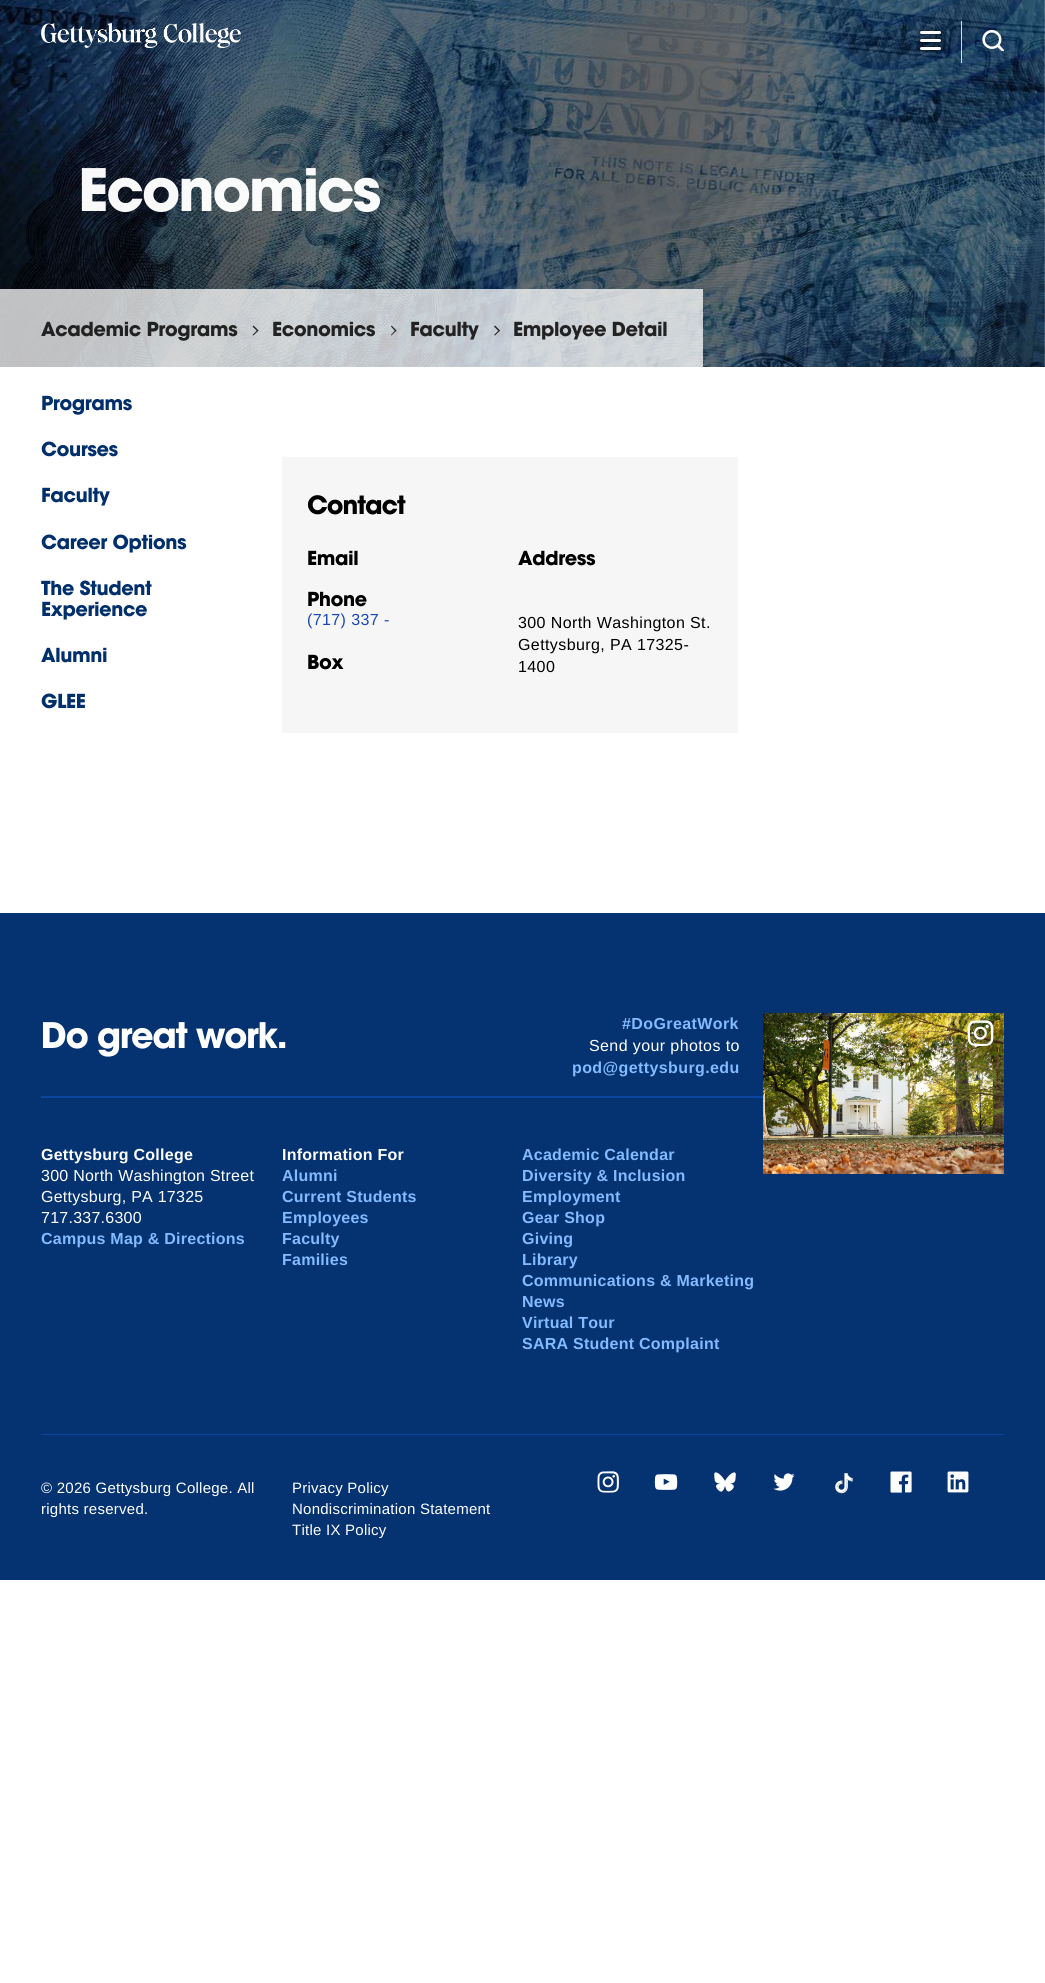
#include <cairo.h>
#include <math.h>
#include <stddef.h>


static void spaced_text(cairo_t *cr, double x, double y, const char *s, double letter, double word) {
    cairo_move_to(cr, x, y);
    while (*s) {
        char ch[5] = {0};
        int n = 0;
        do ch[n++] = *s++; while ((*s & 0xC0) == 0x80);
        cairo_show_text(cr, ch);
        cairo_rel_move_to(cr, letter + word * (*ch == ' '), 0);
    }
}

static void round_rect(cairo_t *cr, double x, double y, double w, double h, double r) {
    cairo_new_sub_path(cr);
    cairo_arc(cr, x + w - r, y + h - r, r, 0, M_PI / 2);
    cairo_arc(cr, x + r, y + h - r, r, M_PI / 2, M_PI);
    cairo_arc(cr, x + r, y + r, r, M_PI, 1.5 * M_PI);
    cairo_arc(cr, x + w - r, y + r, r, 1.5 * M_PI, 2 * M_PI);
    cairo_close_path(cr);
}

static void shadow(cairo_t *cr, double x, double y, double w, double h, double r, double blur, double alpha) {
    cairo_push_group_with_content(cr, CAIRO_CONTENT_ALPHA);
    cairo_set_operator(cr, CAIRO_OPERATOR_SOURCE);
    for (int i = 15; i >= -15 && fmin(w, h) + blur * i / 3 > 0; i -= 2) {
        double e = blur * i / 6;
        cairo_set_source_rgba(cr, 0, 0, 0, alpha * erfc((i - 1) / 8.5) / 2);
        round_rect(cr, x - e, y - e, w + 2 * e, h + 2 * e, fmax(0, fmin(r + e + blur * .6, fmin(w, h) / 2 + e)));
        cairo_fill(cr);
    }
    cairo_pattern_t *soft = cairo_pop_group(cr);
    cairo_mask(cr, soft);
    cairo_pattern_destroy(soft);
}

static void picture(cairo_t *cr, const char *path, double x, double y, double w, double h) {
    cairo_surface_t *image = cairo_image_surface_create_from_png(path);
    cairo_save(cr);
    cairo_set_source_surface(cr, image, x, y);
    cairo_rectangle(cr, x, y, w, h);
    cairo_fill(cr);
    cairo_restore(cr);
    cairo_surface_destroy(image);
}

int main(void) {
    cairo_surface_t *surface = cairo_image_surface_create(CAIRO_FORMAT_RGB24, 1045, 1983);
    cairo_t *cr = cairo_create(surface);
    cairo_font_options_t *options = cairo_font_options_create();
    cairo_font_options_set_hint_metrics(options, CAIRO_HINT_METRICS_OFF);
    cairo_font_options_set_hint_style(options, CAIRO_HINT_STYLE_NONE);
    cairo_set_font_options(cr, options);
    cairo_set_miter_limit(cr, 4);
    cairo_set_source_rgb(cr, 1, 1, 1);
    cairo_paint(cr);
    picture(cr, "img3.png", 0, 0, 1045, 367);
    picture(cr, "img1.png", 41, 23, 200, 25);
    cairo_set_source_rgb(cr, 0, 0, 0);
    shadow(cr, 920, 31, 21, 3, 1.5, 1.5, 0.8);
    cairo_set_source_rgb(cr, 1, 1, 1);
    round_rect(cr, 920, 31, 21, 3, 1.5);
    cairo_fill(cr);
    cairo_set_source_rgb(cr, 0, 0, 0);
    shadow(cr, 920, 39, 21, 3, 1.5, 1.5, 0.8);
    cairo_set_source_rgb(cr, 1, 1, 1);
    round_rect(cr, 920, 39, 21, 3, 1.5);
    cairo_fill(cr);
    cairo_set_source_rgb(cr, 0, 0, 0);
    shadow(cr, 920, 47, 21, 3, 1.5, 1.5, 0.8);
    cairo_set_source_rgb(cr, 1, 1, 1);
    round_rect(cr, 920, 47, 21, 3, 1.5);
    cairo_fill(cr);
    cairo_set_source_rgba(cr, 1, 1, 1, 0.8);
    cairo_rectangle(cr, 961, 21, 1, 42);
    cairo_fill(cr);
    picture(cr, "img2.png", 982, 29, 22, 22);
    picture(cr, "img4.png", 81, 168, 299, 45);
    cairo_set_source_rgba(cr, 1, 1, 1, 0.75);
    cairo_rectangle(cr, 41, 289, 662, 78);
    cairo_fill(cr);
    cairo_rectangle(cr, 0, 289, 41, 78);
    cairo_fill(cr);
    picture(cr, "img5.png", 41, 321, 197, 20);
    cairo_set_source_rgb(cr, 0.133, 0.133, 0.133);
    cairo_new_path(cr);
    cairo_move_to(cr, 252.5, 326.5);
    cairo_line_to(cr, 253.5, 325.5);
    cairo_line_to(cr, 258.5, 330.5);
    cairo_line_to(cr, 257.5, 331.5);
    cairo_close_path(cr);
    cairo_fill(cr);
    cairo_new_path(cr);
    cairo_move_to(cr, 252.5, 335);
    cairo_line_to(cr, 257.5, 330);
    cairo_line_to(cr, 258.5, 330.5);
    cairo_line_to(cr, 253.5, 335.5);
    cairo_close_path(cr);
    cairo_fill(cr);
    picture(cr, "img6.png", 273, 321, 102, 16);
    cairo_new_path(cr);
    cairo_move_to(cr, 391, 326.5);
    cairo_line_to(cr, 391.5, 325.5);
    cairo_line_to(cr, 396.5, 330.5);
    cairo_line_to(cr, 395.5, 331.5);
    cairo_close_path(cr);
    cairo_fill(cr);
    cairo_new_path(cr);
    cairo_move_to(cr, 391, 335);
    cairo_line_to(cr, 395.5, 330);
    cairo_line_to(cr, 396.5, 330.5);
    cairo_line_to(cr, 391.5, 335.5);
    cairo_close_path(cr);
    cairo_fill(cr);
    picture(cr, "img7.png", 411, 321, 68, 19);
    cairo_new_path(cr);
    cairo_move_to(cr, 494, 326.5);
    cairo_line_to(cr, 495, 325.5);
    cairo_line_to(cr, 500, 330.5);
    cairo_line_to(cr, 499, 331.5);
    cairo_close_path(cr);
    cairo_fill(cr);
    cairo_new_path(cr);
    cairo_move_to(cr, 494, 335);
    cairo_line_to(cr, 499, 330);
    cairo_line_to(cr, 500, 330.5);
    cairo_line_to(cr, 495, 335.5);
    cairo_close_path(cr);
    cairo_fill(cr);
    picture(cr, "img8.png", 514, 321, 153, 19);
    picture(cr, "img9.png", 42, 395, 90, 20);
    picture(cr, "img10.png", 41, 441, 77, 16);
    picture(cr, "img11.png", 42, 487, 68, 19);
    picture(cr, "img12.png", 41, 534, 146, 19);
    picture(cr, "img13.png", 41, 580, 111, 16);
    picture(cr, "img14.png", 42, 601, 105, 19);
    picture(cr, "img15.png", 41, 647, 66, 16);
    picture(cr, "img16.png", 41, 693, 44, 16);
    cairo_set_source_rgb(cr, 0.961, 0.961, 0.961);
    cairo_rectangle(cr, 282, 457, 456, 276);
    cairo_fill(cr);
    picture(cr, "img17.png", 307, 495, 99, 20);
    picture(cr, "img18.png", 308, 550, 50, 16);
    picture(cr, "img19.png", 308, 591, 59, 16);
    cairo_select_font_face(cr, "Liberation Sans", CAIRO_FONT_SLANT_NORMAL, CAIRO_FONT_WEIGHT_NORMAL);
    cairo_set_font_size(cr, 16);
    cairo_set_source_rgb(cr, 0.098, 0.282, 0.706);
    spaced_text(cr, 307, 625, "(717) 337 -", 0.4, 0);
    picture(cr, "img20.png", 308, 654, 36, 16);
    picture(cr, "img21.png", 518, 550, 78, 16);
    cairo_set_source_rgb(cr, 0, 0, 0);
    spaced_text(cr, 518, 628, "300 North Washington St.", 0.4, 0);
    spaced_text(cr, 518, 650, "Gettysburg, PA 17325-", 0.4, 0);
    spaced_text(cr, 518, 672, "1400", 0.4, 0);
    cairo_set_source_rgb(cr, 0.02, 0.2, 0.443);
    cairo_rectangle(cr, 0, 913, 1045, 667);
    cairo_fill(cr);
    cairo_set_source_rgb(cr, 0.043, 0.271, 0.62);
    cairo_rectangle(cr, 41, 1096, 722, 2);
    cairo_fill(cr);
    picture(cr, "img22.png", 43, 1022, 243, 35);
    cairo_select_font_face(cr, "Liberation Sans", CAIRO_FONT_SLANT_NORMAL, CAIRO_FONT_WEIGHT_BOLD);
    cairo_set_source_rgb(cr, 0.518, 0.729, 1);
    spaced_text(cr, 622, 1029, "#DoGreatWork", 0.4, 0);
    cairo_select_font_face(cr, "Liberation Sans", CAIRO_FONT_SLANT_NORMAL, CAIRO_FONT_WEIGHT_NORMAL);
    cairo_set_source_rgb(cr, 1, 1, 1);
    spaced_text(cr, 589, 1051, "Send your photos to", 0.4, 0);
    cairo_select_font_face(cr, "Liberation Sans", CAIRO_FONT_SLANT_NORMAL, CAIRO_FONT_WEIGHT_BOLD);
    cairo_set_source_rgb(cr, 0.518, 0.729, 1);
    spaced_text(cr, 572, 1073, "pod@gettysburg.edu", 0.4, 0);
    picture(cr, "img23.png", 763, 1013, 241, 161);
    picture(cr, "img24.png", 967, 1020, 27, 26);
    cairo_set_source_rgb(cr, 0.043, 0.271, 0.62);
    cairo_rectangle(cr, 41, 1434, 963, 1);
    cairo_fill(cr);
    cairo_set_source_rgb(cr, 1, 1, 1);
    spaced_text(cr, 41, 1160, "Gettysburg College", 0.25, 0);
    cairo_select_font_face(cr, "Liberation Sans", CAIRO_FONT_SLANT_NORMAL, CAIRO_FONT_WEIGHT_NORMAL);
    spaced_text(cr, 41, 1181, "300 North Washington Street", 0.25, 0);
    spaced_text(cr, 41, 1202, "Gettysburg, PA 17325", 0.25, 0);
    spaced_text(cr, 41, 1223, "717.337.6300", 0.25, 0);
    cairo_select_font_face(cr, "Liberation Sans", CAIRO_FONT_SLANT_NORMAL, CAIRO_FONT_WEIGHT_BOLD);
    cairo_set_source_rgb(cr, 0.518, 0.729, 1);
    spaced_text(cr, 41, 1244, "Campus Map & Directions", 0.25, 0);
    cairo_set_source_rgb(cr, 1, 1, 1);
    spaced_text(cr, 282, 1160, "Information For", 0.25, 0);
    cairo_set_source_rgb(cr, 0.518, 0.729, 1);
    spaced_text(cr, 282, 1181, "Alumni", 0.25, 0);
    spaced_text(cr, 282, 1202, "Current Students", 0.25, 0);
    spaced_text(cr, 282, 1223, "Employees", 0.25, 0);
    spaced_text(cr, 282, 1244, "Faculty", 0.25, 0);
    spaced_text(cr, 282, 1265, "Families", 0.25, 0);
    spaced_text(cr, 522, 1160, "Academic Calendar", 0.25, 0);
    spaced_text(cr, 522, 1181, "Diversity & Inclusion", 0.25, 0);
    spaced_text(cr, 522, 1202, "Employment", 0.25, 0);
    spaced_text(cr, 522, 1223, "Gear Shop", 0.25, 0);
    spaced_text(cr, 522, 1244, "Giving", 0.25, 0);
    spaced_text(cr, 522, 1265, "Library", 0.25, 0);
    spaced_text(cr, 522, 1286, "Communications & Marketing", 0.25, 0);
    spaced_text(cr, 522, 1307, "News", 0.25, 0);
    spaced_text(cr, 522, 1328, "Virtual Tour", 0.25, 0);
    spaced_text(cr, 522, 1349, "SARA Student Complaint", 0.25, 0);
    cairo_select_font_face(cr, "Liberation Sans", CAIRO_FONT_SLANT_NORMAL, CAIRO_FONT_WEIGHT_NORMAL);
    cairo_set_font_size(cr, 15);
    cairo_set_source_rgb(cr, 1, 1, 1);
    spaced_text(cr, 41, 1493, "© 2026 Gettysburg College. All", 0.25, 0);
    spaced_text(cr, 41, 1514, "rights reserved.", 0.25, 0);
    spaced_text(cr, 292, 1493, "Privacy Policy", 0.25, 0);
    spaced_text(cr, 292, 1514, "Nondiscrimination Statement", 0.25, 0);
    spaced_text(cr, 292, 1535, "Title IX Policy", 0.25, 0);
    picture(cr, "img25.png", 597, 1471, 22, 22);
    picture(cr, "img26.png", 654, 1474, 24, 16);
    picture(cr, "img27.png", 714, 1472, 22, 20);
    picture(cr, "img28.png", 773, 1473, 22, 18);
    picture(cr, "img29.png", 835, 1473, 18, 21);
    picture(cr, "img30.png", 890, 1471, 22, 22);
    picture(cr, "img31.png", 947, 1471, 22, 22);
    cairo_surface_write_to_png(surface, "page.png");
    cairo_font_options_destroy(options);
    cairo_destroy(cr);
    cairo_surface_destroy(surface);
    return 0;
}
